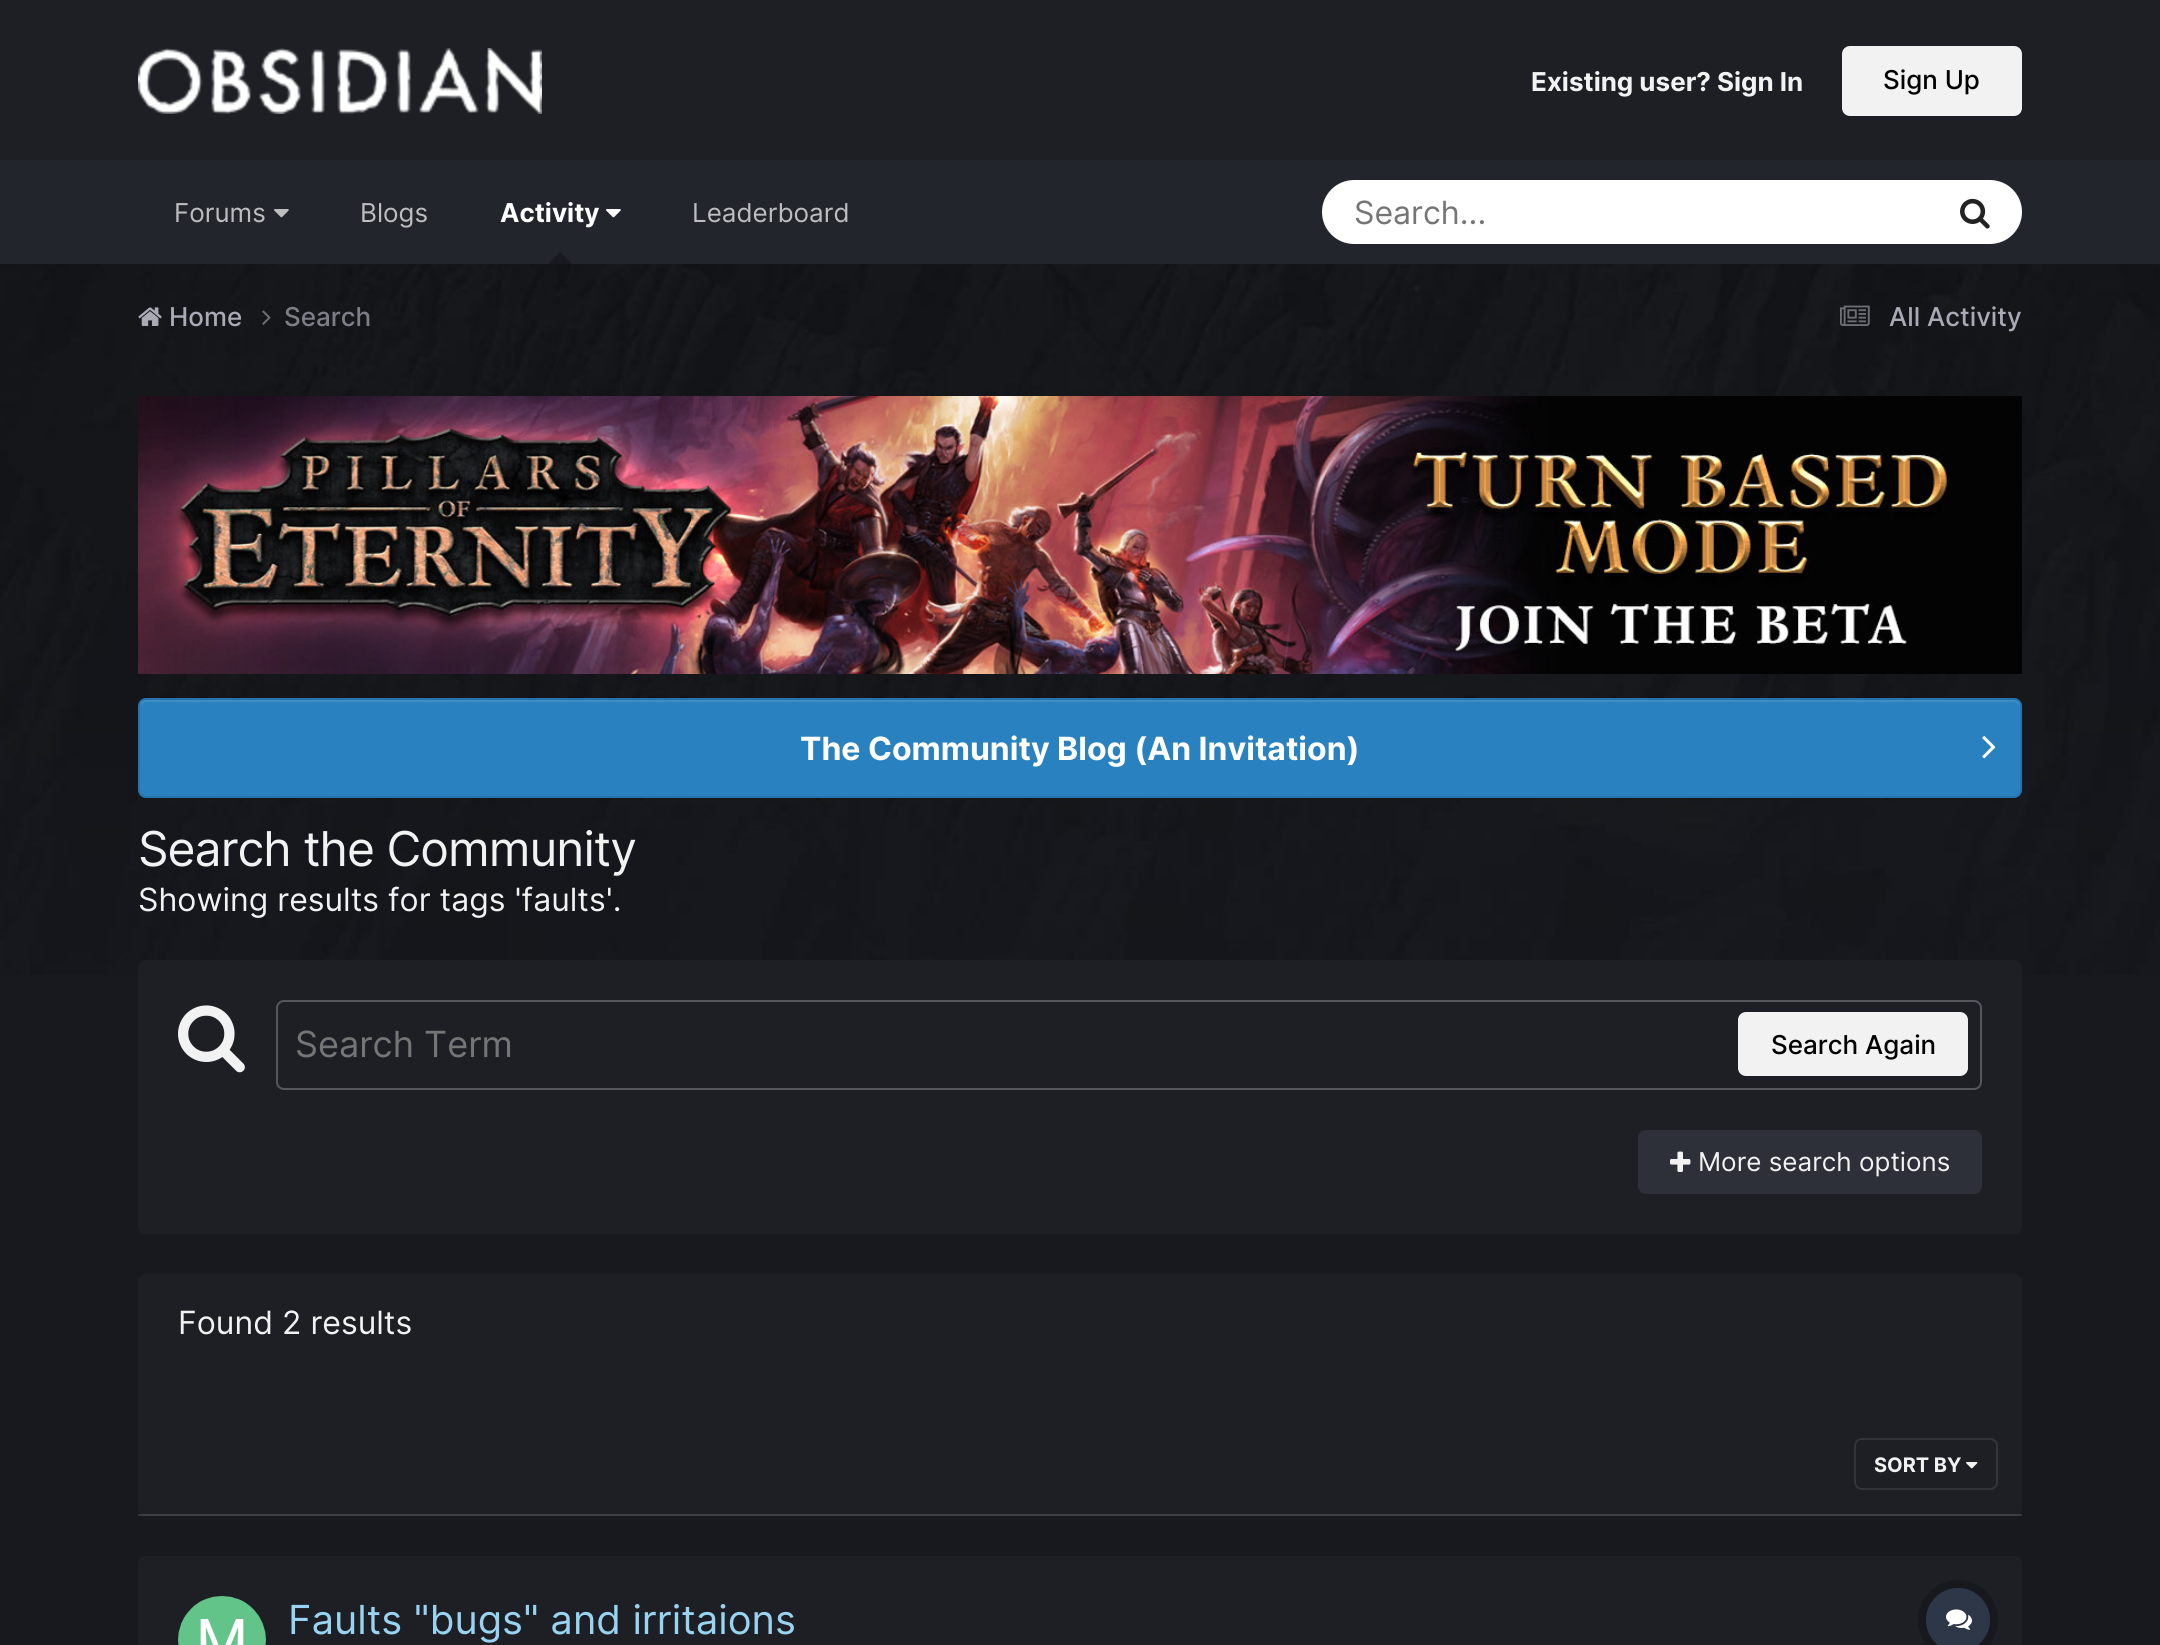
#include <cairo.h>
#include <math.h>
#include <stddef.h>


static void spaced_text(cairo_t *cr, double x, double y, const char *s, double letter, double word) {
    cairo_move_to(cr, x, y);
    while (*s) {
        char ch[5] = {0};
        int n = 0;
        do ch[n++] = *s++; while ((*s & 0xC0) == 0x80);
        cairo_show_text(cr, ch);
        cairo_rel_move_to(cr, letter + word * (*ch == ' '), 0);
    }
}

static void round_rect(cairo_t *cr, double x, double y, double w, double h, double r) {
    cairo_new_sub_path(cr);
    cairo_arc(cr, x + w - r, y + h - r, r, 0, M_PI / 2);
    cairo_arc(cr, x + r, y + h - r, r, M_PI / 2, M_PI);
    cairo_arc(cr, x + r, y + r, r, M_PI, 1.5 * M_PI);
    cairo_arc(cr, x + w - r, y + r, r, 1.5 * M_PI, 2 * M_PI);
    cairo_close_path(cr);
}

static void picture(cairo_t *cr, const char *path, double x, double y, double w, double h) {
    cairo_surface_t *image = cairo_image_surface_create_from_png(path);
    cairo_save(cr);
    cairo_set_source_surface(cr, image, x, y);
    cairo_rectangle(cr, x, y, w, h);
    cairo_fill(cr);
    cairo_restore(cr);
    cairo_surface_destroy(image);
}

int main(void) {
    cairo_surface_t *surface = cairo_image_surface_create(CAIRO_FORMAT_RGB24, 2160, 1645);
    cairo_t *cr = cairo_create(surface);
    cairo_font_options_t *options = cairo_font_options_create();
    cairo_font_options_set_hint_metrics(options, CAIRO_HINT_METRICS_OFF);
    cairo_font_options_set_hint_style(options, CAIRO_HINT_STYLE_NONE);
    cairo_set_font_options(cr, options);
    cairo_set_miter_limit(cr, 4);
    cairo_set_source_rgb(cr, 0.09, 0.098, 0.122);
    cairo_paint(cr);
    cairo_set_source_rgb(cr, 0.114, 0.122, 0.145);
    cairo_rectangle(cr, 0, 0, 2160, 160);
    cairo_fill(cr);
    picture(cr, "img1.png", 138, 48, 404, 66);
    cairo_select_font_face(cr, "Inter", CAIRO_FONT_SLANT_NORMAL, CAIRO_FONT_WEIGHT_BOLD);
    cairo_set_font_size(cr, 26);
    cairo_set_source_rgb(cr, 0.949, 0.949, 0.949);
    cairo_move_to(cr, 1531, 91);
    cairo_show_text(cr, "Existing user? Sign In");
    round_rect(cr, 1842, 46, 180, 70, 8);
    cairo_fill(cr);
    cairo_select_font_face(cr, "Inter Medium", CAIRO_FONT_SLANT_NORMAL, CAIRO_FONT_WEIGHT_NORMAL);
    cairo_set_source_rgb(cr, 0, 0, 0);
    cairo_move_to(cr, 1883, 89);
    cairo_show_text(cr, "Sign Up");
    cairo_set_source_rgb(cr, 0.137, 0.145, 0.173);
    cairo_rectangle(cr, 0, 160, 2160, 104);
    cairo_fill(cr);
    cairo_select_font_face(cr, "Inter", CAIRO_FONT_SLANT_NORMAL, CAIRO_FONT_WEIGHT_NORMAL);
    cairo_set_source_rgb(cr, 0.741, 0.745, 0.753);
    cairo_move_to(cr, 174, 222);
    cairo_show_text(cr, "Forums");
    picture(cr, "img2.png", 274, 209, 15, 9);
    cairo_move_to(cr, 360, 222);
    cairo_show_text(cr, "Blogs");
    cairo_select_font_face(cr, "Inter", CAIRO_FONT_SLANT_NORMAL, CAIRO_FONT_WEIGHT_BOLD);
    cairo_set_source_rgb(cr, 1, 1, 1);
    cairo_move_to(cr, 500, 222);
    cairo_show_text(cr, "Activity");
    picture(cr, "img3.png", 606, 209, 15, 9);
    cairo_set_source_rgb(cr, 0.09, 0.098, 0.122);
    cairo_new_path(cr);
    cairo_move_to(cr, 572, 264);
    cairo_line_to(cr, 548, 264);
    cairo_line_to(cr, 560, 252);
    cairo_close_path(cr);
    cairo_fill(cr);
    cairo_select_font_face(cr, "Inter", CAIRO_FONT_SLANT_NORMAL, CAIRO_FONT_WEIGHT_NORMAL);
    cairo_set_source_rgb(cr, 0.741, 0.745, 0.753);
    cairo_move_to(cr, 692, 222);
    cairo_show_text(cr, "Leaderboard");
    cairo_set_source_rgb(cr, 1, 1, 1);
    round_rect(cr, 1322, 180, 700, 64, 32);
    cairo_fill(cr);
    cairo_set_font_size(cr, 32);
    cairo_set_source_rgb(cr, 0.459, 0.459, 0.459);
    cairo_move_to(cr, 1354, 224);
    cairo_show_text(cr, "Search...");
    picture(cr, "img4.png", 1960, 198, 30, 31);
    picture(cr, "img5.png", 0, 264, 2160, 711);
    picture(cr, "img6.png", 138, 307, 24, 19);
    cairo_select_font_face(cr, "Inter Medium", CAIRO_FONT_SLANT_NORMAL, CAIRO_FONT_WEIGHT_NORMAL);
    cairo_set_font_size(cr, 26);
    cairo_set_source_rgb(cr, 0.667, 0.667, 0.714);
    cairo_move_to(cr, 169, 326);
    cairo_show_text(cr, "Home");
    picture(cr, "img7.png", 262, 310, 9, 15);
    cairo_set_source_rgb(cr, 0.49, 0.494, 0.529);
    cairo_move_to(cr, 284, 326);
    cairo_show_text(cr, "Search");
    picture(cr, "img8.png", 1840, 305, 30, 21);
    cairo_set_source_rgb(cr, 0.667, 0.667, 0.714);
    cairo_move_to(cr, 1889, 326);
    cairo_show_text(cr, "All Activity");
    picture(cr, "img9.png", 138, 396, 1884, 278);
    cairo_set_source_rgb(cr, 0.161, 0.506, 0.749);
    round_rect(cr, 138, 698, 1884, 100, 8);
    cairo_fill(cr);
    cairo_set_source_rgb(cr, 0.243, 0.557, 0.773);
    cairo_new_path(cr);
    cairo_move_to(cr, 146, 702);
    cairo_line_to(cr, 2014, 702);
    cairo_curve_to(cr, 2017, 702, 2020, 705, 2020, 708);
    cairo_curve_to(cr, 2020, 704, 2019, 700, 2014, 700);
    cairo_line_to(cr, 146, 700);
    cairo_curve_to(cr, 141, 700, 140, 704, 140, 708);
    cairo_curve_to(cr, 140, 705, 143, 702, 146, 702);
    cairo_close_path(cr);
    cairo_fill(cr);
    round_rect(cr, 139, 699, 1882, 98, 7);
    cairo_set_source_rgba(cr, 0, 0, 0, 0.1);
    cairo_stroke(cr);
    cairo_select_font_face(cr, "Inter", CAIRO_FONT_SLANT_NORMAL, CAIRO_FONT_WEIGHT_BOLD);
    cairo_set_font_size(cr, 32);
    cairo_set_source_rgb(cr, 1, 1, 1);
    cairo_move_to(cr, 800, 760);
    cairo_show_text(cr, "The Community Blog (An Invitation)");
    picture(cr, "img10.png", 1982, 736, 14, 23);
    cairo_select_font_face(cr, "Inter", CAIRO_FONT_SLANT_NORMAL, CAIRO_FONT_WEIGHT_NORMAL);
    cairo_set_font_size(cr, 48);
    cairo_set_source_rgb(cr, 0.949, 0.949, 0.949);
    spaced_text(cr, 138, 866, "Search the Community", -1, 0);
    cairo_set_font_size(cr, 32);
    cairo_move_to(cr, 138, 911);
    cairo_show_text(cr, "Showing results for tags 'faults'.");
    cairo_set_source_rgb(cr, 0.114, 0.122, 0.145);
    round_rect(cr, 138, 960, 1884, 274, 8);
    cairo_fill(cr);
    picture(cr, "img11.png", 178, 1005, 67, 68);
    round_rect(cr, 277, 1001, 1704, 88, 7);
    cairo_set_source_rgb(cr, 0.333, 0.341, 0.373);
    cairo_stroke(cr);
    cairo_set_font_size(cr, 36);
    cairo_set_source_rgb(cr, 0.459, 0.459, 0.459);
    cairo_move_to(cr, 295, 1057);
    cairo_show_text(cr, "Search Term");
    cairo_set_source_rgb(cr, 0.949, 0.949, 0.949);
    round_rect(cr, 1738, 1012, 230, 64, 8);
    cairo_fill(cr);
    cairo_select_font_face(cr, "Inter Medium", CAIRO_FONT_SLANT_NORMAL, CAIRO_FONT_WEIGHT_NORMAL);
    cairo_set_font_size(cr, 26);
    cairo_set_source_rgb(cr, 0, 0, 0);
    cairo_move_to(cr, 1771, 1054);
    cairo_show_text(cr, "Search Again");
    cairo_set_source_rgb(cr, 0.18, 0.188, 0.224);
    round_rect(cr, 1638, 1130, 344, 64, 8);
    cairo_fill(cr);
    picture(cr, "img12.png", 1670, 1151, 21, 21);
    cairo_select_font_face(cr, "Inter", CAIRO_FONT_SLANT_NORMAL, CAIRO_FONT_WEIGHT_NORMAL);
    cairo_set_source_rgb(cr, 0.949, 0.949, 0.949);
    cairo_move_to(cr, 1698, 1171);
    cairo_show_text(cr, "More search options");
    cairo_set_source_rgb(cr, 0.114, 0.122, 0.145);
    round_rect(cr, 138, 1274, 1884, 242, 8);
    cairo_fill(cr);
    cairo_set_font_size(cr, 32);
    cairo_set_source_rgb(cr, 0.949, 0.949, 0.949);
    cairo_move_to(cr, 178, 1334);
    cairo_show_text(cr, "Found 2 results");
    cairo_set_source_rgba(cr, 0.949, 0.949, 0.949, 0.15);
    cairo_rectangle(cr, 138, 1514, 1884, 2);
    cairo_fill(cr);
    picture(cr, "img13.png", 1966, 1462, 12, 7);
    round_rect(cr, 1855, 1439, 142, 50, 7);
    cairo_set_source_rgb(cr, 0.196, 0.204, 0.227);
    cairo_stroke(cr);
    cairo_select_font_face(cr, "Inter", CAIRO_FONT_SLANT_NORMAL, CAIRO_FONT_WEIGHT_BOLD);
    cairo_set_font_size(cr, 20);
    cairo_set_source_rgb(cr, 0.949, 0.949, 0.949);
    cairo_move_to(cr, 1874, 1472);
    cairo_show_text(cr, "SORT BY");
    cairo_set_source_rgb(cr, 0.114, 0.122, 0.145);
    round_rect(cr, 138, 1556, 1884, 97, 8);
    cairo_fill(cr);
    picture(cr, "img14.png", 178, 1596, 88, 49);
    cairo_select_font_face(cr, "Inter", CAIRO_FONT_SLANT_NORMAL, CAIRO_FONT_WEIGHT_NORMAL);
    cairo_set_font_size(cr, 40);
    cairo_set_source_rgb(cr, 0.596, 0.831, 0.949);
    cairo_move_to(cr, 288, 1634);
    cairo_show_text(cr, "Faults \"bugs\" and irritaions");
    cairo_new_path(cr);
    cairo_arc(cr, 1958, 1620, 36, 0, 2 * M_PI);
    cairo_set_source_rgb(cr, 0.09, 0.098, 0.122);
    cairo_set_line_width(cr, 8);
    cairo_stroke(cr);
    cairo_set_source_rgb(cr, 0.176, 0.216, 0.282);
    cairo_arc(cr, 1958, 1620, 32, 0, 2 * M_PI);
    cairo_fill(cr);
    picture(cr, "img15.png", 1946, 1609, 26, 21);
    cairo_surface_write_to_png(surface, "page.png");
    cairo_font_options_destroy(options);
    cairo_destroy(cr);
    cairo_surface_destroy(surface);
    return 0;
}
